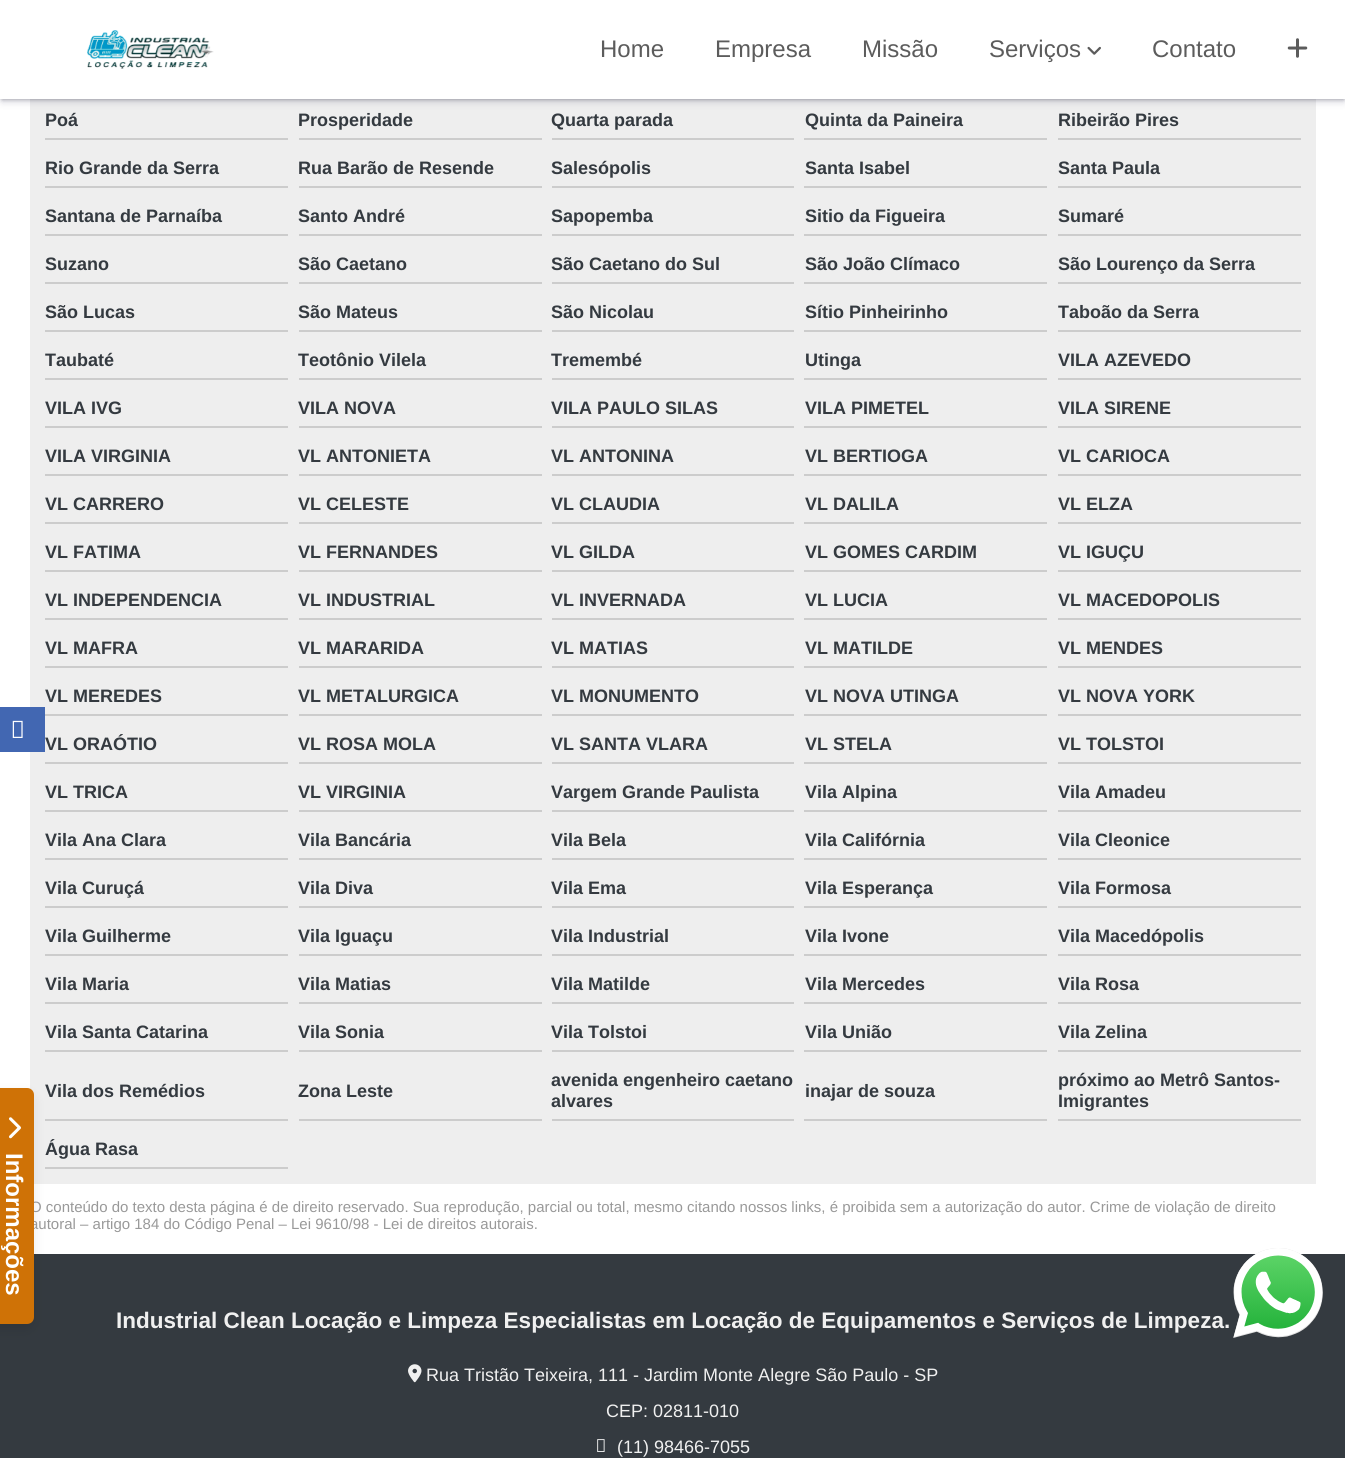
#include <cairo.h>
#include <math.h>
#include <stddef.h>


static void round_rect(cairo_t *cr, double x, double y, double w, double h, double r) {
    cairo_new_sub_path(cr);
    cairo_arc(cr, x + w - r, y + h - r, r, 0, M_PI / 2);
    cairo_arc(cr, x + r, y + h - r, r, M_PI / 2, M_PI);
    cairo_arc(cr, x + r, y + r, r, M_PI, 1.5 * M_PI);
    cairo_arc(cr, x + w - r, y + r, r, 1.5 * M_PI, 2 * M_PI);
    cairo_close_path(cr);
}

static void shadow(cairo_t *cr, double x, double y, double w, double h, double r, double blur, double alpha) {
    cairo_push_group_with_content(cr, CAIRO_CONTENT_ALPHA);
    cairo_set_operator(cr, CAIRO_OPERATOR_SOURCE);
    for (int i = 15; i >= -15 && fmin(w, h) + blur * i / 3 > 0; i -= 2) {
        double e = blur * i / 6;
        cairo_set_source_rgba(cr, 0, 0, 0, alpha * erfc((i - 1) / 8.5) / 2);
        round_rect(cr, x - e, y - e, w + 2 * e, h + 2 * e, fmax(0, fmin(r + e + blur * .6, fmin(w, h) / 2 + e)));
        cairo_fill(cr);
    }
    cairo_pattern_t *soft = cairo_pop_group(cr);
    cairo_mask(cr, soft);
    cairo_pattern_destroy(soft);
}

static void picture(cairo_t *cr, const char *path, double x, double y, double w, double h) {
    cairo_surface_t *image = cairo_image_surface_create_from_png(path);
    cairo_save(cr);
    cairo_set_source_surface(cr, image, x, y);
    cairo_rectangle(cr, x, y, w, h);
    cairo_fill(cr);
    cairo_restore(cr);
    cairo_surface_destroy(image);
}

int main(void) {
    cairo_surface_t *surface = cairo_image_surface_create(CAIRO_FORMAT_RGB24, 1345, 1458);
    cairo_t *cr = cairo_create(surface);
    cairo_font_options_t *options = cairo_font_options_create();
    cairo_font_options_set_hint_metrics(options, CAIRO_HINT_METRICS_OFF);
    cairo_font_options_set_hint_style(options, CAIRO_HINT_STYLE_NONE);
    cairo_set_font_options(cr, options);
    cairo_set_miter_limit(cr, 4);
    cairo_set_source_rgb(cr, 1, 1, 1);
    cairo_paint(cr);
    cairo_set_source_rgb(cr, 0.933, 0.933, 0.933);
    cairo_rectangle(cr, 30, 99, 1286, 1085);
    cairo_fill(cr);
    cairo_set_source_rgb(cr, 0, 0, 0);
    shadow(cr, 2, 3, 1342, 96, 0, 2, 0.3);
    cairo_set_source_rgb(cr, 0.196, 0.196, 0.365);
    shadow(cr, 2, 5, 1342, 96, 0, 4, 0.25);
    cairo_set_source_rgb(cr, 1, 1, 1);
    cairo_rectangle(cr, 0, 0, 1345, 99);
    cairo_fill(cr);
    picture(cr, "img1.png", 87, 30, 127, 39);
    cairo_select_font_face(cr, "Liberation Sans", CAIRO_FONT_SLANT_NORMAL, CAIRO_FONT_WEIGHT_NORMAL);
    cairo_set_font_size(cr, 24);
    cairo_set_source_rgb(cr, 0.361, 0.361, 0.361);
    cairo_move_to(cr, 600, 57);
    cairo_show_text(cr, "Home");
    cairo_move_to(cr, 715, 57);
    cairo_show_text(cr, "Empresa");
    cairo_move_to(cr, 862, 57);
    cairo_show_text(cr, "Missão");
    cairo_move_to(cr, 989, 57);
    cairo_show_text(cr, "Serviços");
    picture(cr, "img2.png", 1087, 46, 14, 9);
    cairo_move_to(cr, 1152, 57);
    cairo_show_text(cr, "Contato");
    picture(cr, "img3.png", 1287, 38, 21, 20);
    cairo_set_source_rgb(cr, 0.8, 0.8, 0.8);
    cairo_rectangle(cr, 45, 1119, 243, 2);
    cairo_fill(cr);
    cairo_rectangle(cr, 45, 1167, 243, 2);
    cairo_fill(cr);
    cairo_set_source_rgb(cr, 0.204, 0.227, 0.251);
    cairo_rectangle(cr, 0, 1254, 1345, 204);
    cairo_fill(cr);
    cairo_set_source_rgb(cr, 0, 0, 0);
    shadow(cr, -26, 1094, 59, 235, 8, 6, 0.1);
    cairo_set_font_size(cr, 15);
    cairo_set_source_rgb(cr, 0.6, 0.6, 0.6);
    cairo_move_to(cr, 30, 1212);
    cairo_show_text(cr, "O conteúdo do texto desta página é de direito reservado. Sua reprodução, parcial ou total, mesmo citando nossos links, é proibida sem a autorização do autor. Crime de violação de direito");
    cairo_move_to(cr, 30, 1229);
    cairo_show_text(cr, "autoral – artigo 184 do Código Penal – Lei 9610/98 - Lei de direitos autorais.");
    round_rect(cr, -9, 1089, 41, 233, 7);
    cairo_set_source_rgb(cr, 0.8, 0.8, 0.8);
    cairo_stroke(cr);
    cairo_set_source_rgb(cr, 0.812, 0.447, 0.027);
    cairo_new_path(cr);
    cairo_move_to(cr, 34, 1095);
    cairo_line_to(cr, 34, 1317);
    cairo_curve_to(cr, 34, 1321, 31, 1324, 27, 1324);
    cairo_line_to(cr, 0, 1324);
    cairo_curve_to(cr, -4, 1324, -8, 1321, -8, 1317);
    cairo_line_to(cr, -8, 1095);
    cairo_curve_to(cr, -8, 1091, -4, 1088, 0, 1088);
    cairo_line_to(cr, 27, 1088);
    cairo_curve_to(cr, 31, 1088, 34, 1091, 34, 1095);
    cairo_close_path(cr);
    cairo_fill(cr);
    picture(cr, "img4.png", 9, 1117, 12, 22);
    cairo_select_font_face(cr, "Liberation Sans", CAIRO_FONT_SLANT_NORMAL, CAIRO_FONT_WEIGHT_BOLD);
    cairo_set_font_size(cr, 24);
    cairo_set_source_rgb(cr, 1, 1, 1);
    cairo_save(cr);
    cairo_translate(cr, 6, 1153);
    cairo_rotate(cr, 90 * M_PI / 180);
    cairo_move_to(cr, 0, 0);
    cairo_show_text(cr, "Informações");
    cairo_restore(cr);
    cairo_set_source_rgb(cr, 0.8, 0.8, 0.8);
    cairo_rectangle(cr, 45, 138, 243, 2);
    cairo_fill(cr);
    cairo_set_font_size(cr, 18);
    cairo_set_source_rgb(cr, 0.204, 0.227, 0.251);
    cairo_move_to(cr, 45, 126);
    cairo_show_text(cr, "Poá");
    cairo_set_source_rgb(cr, 0.8, 0.8, 0.8);
    cairo_rectangle(cr, 299, 138, 243, 2);
    cairo_fill(cr);
    cairo_set_source_rgb(cr, 0.204, 0.227, 0.251);
    cairo_move_to(cr, 298, 126);
    cairo_show_text(cr, "Prosperidade");
    cairo_set_source_rgb(cr, 0.8, 0.8, 0.8);
    cairo_rectangle(cr, 552, 138, 242, 2);
    cairo_fill(cr);
    cairo_set_source_rgb(cr, 0.204, 0.227, 0.251);
    cairo_move_to(cr, 551, 126);
    cairo_show_text(cr, "Quarta parada");
    cairo_set_source_rgb(cr, 0.8, 0.8, 0.8);
    cairo_rectangle(cr, 804, 138, 243, 2);
    cairo_fill(cr);
    cairo_set_source_rgb(cr, 0.204, 0.227, 0.251);
    cairo_move_to(cr, 805, 126);
    cairo_show_text(cr, "Quinta da Paineira");
    cairo_set_source_rgb(cr, 0.8, 0.8, 0.8);
    cairo_rectangle(cr, 1058, 138, 243, 2);
    cairo_fill(cr);
    cairo_set_source_rgb(cr, 0.204, 0.227, 0.251);
    cairo_move_to(cr, 1058, 126);
    cairo_show_text(cr, "Ribeirão Pires");
    cairo_set_source_rgb(cr, 0.8, 0.8, 0.8);
    cairo_rectangle(cr, 45, 186, 243, 2);
    cairo_fill(cr);
    cairo_set_source_rgb(cr, 0.204, 0.227, 0.251);
    cairo_move_to(cr, 45, 174);
    cairo_show_text(cr, "Rio Grande da Serra");
    cairo_set_source_rgb(cr, 0.8, 0.8, 0.8);
    cairo_rectangle(cr, 299, 186, 243, 2);
    cairo_fill(cr);
    cairo_set_source_rgb(cr, 0.204, 0.227, 0.251);
    cairo_move_to(cr, 298, 174);
    cairo_show_text(cr, "Rua Barão de Resende");
    cairo_set_source_rgb(cr, 0.8, 0.8, 0.8);
    cairo_rectangle(cr, 552, 186, 242, 2);
    cairo_fill(cr);
    cairo_set_source_rgb(cr, 0.204, 0.227, 0.251);
    cairo_move_to(cr, 551, 174);
    cairo_show_text(cr, "Salesópolis");
    cairo_set_source_rgb(cr, 0.8, 0.8, 0.8);
    cairo_rectangle(cr, 804, 186, 243, 2);
    cairo_fill(cr);
    cairo_set_source_rgb(cr, 0.204, 0.227, 0.251);
    cairo_move_to(cr, 805, 174);
    cairo_show_text(cr, "Santa Isabel");
    cairo_set_source_rgb(cr, 0.8, 0.8, 0.8);
    cairo_rectangle(cr, 1058, 186, 243, 2);
    cairo_fill(cr);
    cairo_set_source_rgb(cr, 0.204, 0.227, 0.251);
    cairo_move_to(cr, 1058, 174);
    cairo_show_text(cr, "Santa Paula");
    cairo_set_source_rgb(cr, 0.8, 0.8, 0.8);
    cairo_rectangle(cr, 45, 234, 243, 2);
    cairo_fill(cr);
    cairo_set_source_rgb(cr, 0.204, 0.227, 0.251);
    cairo_move_to(cr, 45, 222);
    cairo_show_text(cr, "Santana de Parnaíba");
    cairo_set_source_rgb(cr, 0.8, 0.8, 0.8);
    cairo_rectangle(cr, 299, 234, 243, 2);
    cairo_fill(cr);
    cairo_set_source_rgb(cr, 0.204, 0.227, 0.251);
    cairo_move_to(cr, 298, 222);
    cairo_show_text(cr, "Santo André");
    cairo_set_source_rgb(cr, 0.8, 0.8, 0.8);
    cairo_rectangle(cr, 552, 234, 242, 2);
    cairo_fill(cr);
    cairo_set_source_rgb(cr, 0.204, 0.227, 0.251);
    cairo_move_to(cr, 551, 222);
    cairo_show_text(cr, "Sapopemba");
    cairo_set_source_rgb(cr, 0.8, 0.8, 0.8);
    cairo_rectangle(cr, 804, 234, 243, 2);
    cairo_fill(cr);
    cairo_set_source_rgb(cr, 0.204, 0.227, 0.251);
    cairo_move_to(cr, 805, 222);
    cairo_show_text(cr, "Sitio da Figueira");
    cairo_set_source_rgb(cr, 0.8, 0.8, 0.8);
    cairo_rectangle(cr, 1058, 234, 243, 2);
    cairo_fill(cr);
    cairo_set_source_rgb(cr, 0.204, 0.227, 0.251);
    cairo_move_to(cr, 1058, 222);
    cairo_show_text(cr, "Sumaré");
    cairo_set_source_rgb(cr, 0.8, 0.8, 0.8);
    cairo_rectangle(cr, 45, 282, 243, 2);
    cairo_fill(cr);
    cairo_set_source_rgb(cr, 0.204, 0.227, 0.251);
    cairo_move_to(cr, 45, 270);
    cairo_show_text(cr, "Suzano");
    cairo_set_source_rgb(cr, 0.8, 0.8, 0.8);
    cairo_rectangle(cr, 299, 282, 243, 2);
    cairo_fill(cr);
    cairo_set_source_rgb(cr, 0.204, 0.227, 0.251);
    cairo_move_to(cr, 298, 270);
    cairo_show_text(cr, "São Caetano");
    cairo_set_source_rgb(cr, 0.8, 0.8, 0.8);
    cairo_rectangle(cr, 552, 282, 242, 2);
    cairo_fill(cr);
    cairo_set_source_rgb(cr, 0.204, 0.227, 0.251);
    cairo_move_to(cr, 551, 270);
    cairo_show_text(cr, "São Caetano do Sul");
    cairo_set_source_rgb(cr, 0.8, 0.8, 0.8);
    cairo_rectangle(cr, 804, 282, 243, 2);
    cairo_fill(cr);
    cairo_set_source_rgb(cr, 0.204, 0.227, 0.251);
    cairo_move_to(cr, 805, 270);
    cairo_show_text(cr, "São João Clímaco");
    cairo_set_source_rgb(cr, 0.8, 0.8, 0.8);
    cairo_rectangle(cr, 1058, 282, 243, 2);
    cairo_fill(cr);
    cairo_set_source_rgb(cr, 0.204, 0.227, 0.251);
    cairo_move_to(cr, 1058, 270);
    cairo_show_text(cr, "São Lourenço da Serra");
    cairo_set_source_rgb(cr, 0.8, 0.8, 0.8);
    cairo_rectangle(cr, 45, 330, 243, 2);
    cairo_fill(cr);
    cairo_set_source_rgb(cr, 0.204, 0.227, 0.251);
    cairo_move_to(cr, 45, 318);
    cairo_show_text(cr, "São Lucas");
    cairo_set_source_rgb(cr, 0.8, 0.8, 0.8);
    cairo_rectangle(cr, 299, 330, 243, 2);
    cairo_fill(cr);
    cairo_set_source_rgb(cr, 0.204, 0.227, 0.251);
    cairo_move_to(cr, 298, 318);
    cairo_show_text(cr, "São Mateus");
    cairo_set_source_rgb(cr, 0.8, 0.8, 0.8);
    cairo_rectangle(cr, 552, 330, 242, 2);
    cairo_fill(cr);
    cairo_set_source_rgb(cr, 0.204, 0.227, 0.251);
    cairo_move_to(cr, 551, 318);
    cairo_show_text(cr, "São Nicolau");
    cairo_set_source_rgb(cr, 0.8, 0.8, 0.8);
    cairo_rectangle(cr, 804, 330, 243, 2);
    cairo_fill(cr);
    cairo_set_source_rgb(cr, 0.204, 0.227, 0.251);
    cairo_move_to(cr, 805, 318);
    cairo_show_text(cr, "Sítio Pinheirinho");
    cairo_set_source_rgb(cr, 0.8, 0.8, 0.8);
    cairo_rectangle(cr, 1058, 330, 243, 2);
    cairo_fill(cr);
    cairo_set_source_rgb(cr, 0.204, 0.227, 0.251);
    cairo_move_to(cr, 1058, 318);
    cairo_show_text(cr, "Taboão da Serra");
    cairo_set_source_rgb(cr, 0.8, 0.8, 0.8);
    cairo_rectangle(cr, 45, 378, 243, 2);
    cairo_fill(cr);
    cairo_set_source_rgb(cr, 0.204, 0.227, 0.251);
    cairo_move_to(cr, 45, 366);
    cairo_show_text(cr, "Taubaté");
    cairo_set_source_rgb(cr, 0.8, 0.8, 0.8);
    cairo_rectangle(cr, 299, 378, 243, 2);
    cairo_fill(cr);
    cairo_set_source_rgb(cr, 0.204, 0.227, 0.251);
    cairo_move_to(cr, 298, 366);
    cairo_show_text(cr, "Teotônio Vilela");
    cairo_set_source_rgb(cr, 0.8, 0.8, 0.8);
    cairo_rectangle(cr, 552, 378, 242, 2);
    cairo_fill(cr);
    cairo_set_source_rgb(cr, 0.204, 0.227, 0.251);
    cairo_move_to(cr, 551, 366);
    cairo_show_text(cr, "Tremembé");
    cairo_set_source_rgb(cr, 0.8, 0.8, 0.8);
    cairo_rectangle(cr, 804, 378, 243, 2);
    cairo_fill(cr);
    cairo_set_source_rgb(cr, 0.204, 0.227, 0.251);
    cairo_move_to(cr, 805, 366);
    cairo_show_text(cr, "Utinga");
    cairo_set_source_rgb(cr, 0.8, 0.8, 0.8);
    cairo_rectangle(cr, 1058, 378, 243, 2);
    cairo_fill(cr);
    cairo_set_source_rgb(cr, 0.204, 0.227, 0.251);
    cairo_move_to(cr, 1058, 366);
    cairo_show_text(cr, "VILA AZEVEDO");
    cairo_set_source_rgb(cr, 0.8, 0.8, 0.8);
    cairo_rectangle(cr, 45, 426, 243, 2);
    cairo_fill(cr);
    cairo_set_source_rgb(cr, 0.204, 0.227, 0.251);
    cairo_move_to(cr, 45, 414);
    cairo_show_text(cr, "VILA IVG");
    cairo_set_source_rgb(cr, 0.8, 0.8, 0.8);
    cairo_rectangle(cr, 299, 426, 243, 2);
    cairo_fill(cr);
    cairo_set_source_rgb(cr, 0.204, 0.227, 0.251);
    cairo_move_to(cr, 298, 414);
    cairo_show_text(cr, "VILA NOVA");
    cairo_set_source_rgb(cr, 0.8, 0.8, 0.8);
    cairo_rectangle(cr, 552, 426, 242, 2);
    cairo_fill(cr);
    cairo_set_source_rgb(cr, 0.204, 0.227, 0.251);
    cairo_move_to(cr, 551, 414);
    cairo_show_text(cr, "VILA PAULO SILAS");
    cairo_set_source_rgb(cr, 0.8, 0.8, 0.8);
    cairo_rectangle(cr, 804, 426, 243, 2);
    cairo_fill(cr);
    cairo_set_source_rgb(cr, 0.204, 0.227, 0.251);
    cairo_move_to(cr, 805, 414);
    cairo_show_text(cr, "VILA PIMETEL");
    cairo_set_source_rgb(cr, 0.8, 0.8, 0.8);
    cairo_rectangle(cr, 1058, 426, 243, 2);
    cairo_fill(cr);
    cairo_set_source_rgb(cr, 0.204, 0.227, 0.251);
    cairo_move_to(cr, 1058, 414);
    cairo_show_text(cr, "VILA SIRENE");
    cairo_set_source_rgb(cr, 0.8, 0.8, 0.8);
    cairo_rectangle(cr, 45, 474, 243, 2);
    cairo_fill(cr);
    cairo_set_source_rgb(cr, 0.204, 0.227, 0.251);
    cairo_move_to(cr, 45, 462);
    cairo_show_text(cr, "VILA VIRGINIA");
    cairo_set_source_rgb(cr, 0.8, 0.8, 0.8);
    cairo_rectangle(cr, 299, 474, 243, 2);
    cairo_fill(cr);
    cairo_set_source_rgb(cr, 0.204, 0.227, 0.251);
    cairo_move_to(cr, 298, 462);
    cairo_show_text(cr, "VL ANTONIETA");
    cairo_set_source_rgb(cr, 0.8, 0.8, 0.8);
    cairo_rectangle(cr, 552, 474, 242, 2);
    cairo_fill(cr);
    cairo_set_source_rgb(cr, 0.204, 0.227, 0.251);
    cairo_move_to(cr, 551, 462);
    cairo_show_text(cr, "VL ANTONINA");
    cairo_set_source_rgb(cr, 0.8, 0.8, 0.8);
    cairo_rectangle(cr, 804, 474, 243, 2);
    cairo_fill(cr);
    cairo_set_source_rgb(cr, 0.204, 0.227, 0.251);
    cairo_move_to(cr, 805, 462);
    cairo_show_text(cr, "VL BERTIOGA");
    cairo_set_source_rgb(cr, 0.8, 0.8, 0.8);
    cairo_rectangle(cr, 1058, 474, 243, 2);
    cairo_fill(cr);
    cairo_set_source_rgb(cr, 0.204, 0.227, 0.251);
    cairo_move_to(cr, 1058, 462);
    cairo_show_text(cr, "VL CARIOCA");
    cairo_set_source_rgb(cr, 0.8, 0.8, 0.8);
    cairo_rectangle(cr, 45, 522, 243, 2);
    cairo_fill(cr);
    cairo_set_source_rgb(cr, 0.204, 0.227, 0.251);
    cairo_move_to(cr, 45, 510);
    cairo_show_text(cr, "VL CARRERO");
    cairo_set_source_rgb(cr, 0.8, 0.8, 0.8);
    cairo_rectangle(cr, 299, 522, 243, 2);
    cairo_fill(cr);
    cairo_set_source_rgb(cr, 0.204, 0.227, 0.251);
    cairo_move_to(cr, 298, 510);
    cairo_show_text(cr, "VL CELESTE");
    cairo_set_source_rgb(cr, 0.8, 0.8, 0.8);
    cairo_rectangle(cr, 552, 522, 242, 2);
    cairo_fill(cr);
    cairo_set_source_rgb(cr, 0.204, 0.227, 0.251);
    cairo_move_to(cr, 551, 510);
    cairo_show_text(cr, "VL CLAUDIA");
    cairo_set_source_rgb(cr, 0.8, 0.8, 0.8);
    cairo_rectangle(cr, 804, 522, 243, 2);
    cairo_fill(cr);
    cairo_set_source_rgb(cr, 0.204, 0.227, 0.251);
    cairo_move_to(cr, 805, 510);
    cairo_show_text(cr, "VL DALILA");
    cairo_set_source_rgb(cr, 0.8, 0.8, 0.8);
    cairo_rectangle(cr, 1058, 522, 243, 2);
    cairo_fill(cr);
    cairo_set_source_rgb(cr, 0.204, 0.227, 0.251);
    cairo_move_to(cr, 1058, 510);
    cairo_show_text(cr, "VL ELZA");
    cairo_set_source_rgb(cr, 0.8, 0.8, 0.8);
    cairo_rectangle(cr, 45, 570, 243, 2);
    cairo_fill(cr);
    cairo_set_source_rgb(cr, 0.204, 0.227, 0.251);
    cairo_move_to(cr, 45, 558);
    cairo_show_text(cr, "VL FATIMA");
    cairo_set_source_rgb(cr, 0.8, 0.8, 0.8);
    cairo_rectangle(cr, 299, 570, 243, 2);
    cairo_fill(cr);
    cairo_set_source_rgb(cr, 0.204, 0.227, 0.251);
    cairo_move_to(cr, 298, 558);
    cairo_show_text(cr, "VL FERNANDES");
    cairo_set_source_rgb(cr, 0.8, 0.8, 0.8);
    cairo_rectangle(cr, 552, 570, 242, 2);
    cairo_fill(cr);
    cairo_set_source_rgb(cr, 0.204, 0.227, 0.251);
    cairo_move_to(cr, 551, 558);
    cairo_show_text(cr, "VL GILDA");
    cairo_set_source_rgb(cr, 0.8, 0.8, 0.8);
    cairo_rectangle(cr, 804, 570, 243, 2);
    cairo_fill(cr);
    cairo_set_source_rgb(cr, 0.204, 0.227, 0.251);
    cairo_move_to(cr, 805, 558);
    cairo_show_text(cr, "VL GOMES CARDIM");
    cairo_set_source_rgb(cr, 0.8, 0.8, 0.8);
    cairo_rectangle(cr, 1058, 570, 243, 2);
    cairo_fill(cr);
    cairo_set_source_rgb(cr, 0.204, 0.227, 0.251);
    cairo_move_to(cr, 1058, 558);
    cairo_show_text(cr, "VL IGUÇU");
    cairo_set_source_rgb(cr, 0.8, 0.8, 0.8);
    cairo_rectangle(cr, 45, 618, 243, 2);
    cairo_fill(cr);
    cairo_set_source_rgb(cr, 0.204, 0.227, 0.251);
    cairo_move_to(cr, 45, 606);
    cairo_show_text(cr, "VL INDEPENDENCIA");
    cairo_set_source_rgb(cr, 0.8, 0.8, 0.8);
    cairo_rectangle(cr, 299, 618, 243, 2);
    cairo_fill(cr);
    cairo_set_source_rgb(cr, 0.204, 0.227, 0.251);
    cairo_move_to(cr, 298, 606);
    cairo_show_text(cr, "VL INDUSTRIAL");
    cairo_set_source_rgb(cr, 0.8, 0.8, 0.8);
    cairo_rectangle(cr, 552, 618, 242, 2);
    cairo_fill(cr);
    cairo_set_source_rgb(cr, 0.204, 0.227, 0.251);
    cairo_move_to(cr, 551, 606);
    cairo_show_text(cr, "VL INVERNADA");
    cairo_set_source_rgb(cr, 0.8, 0.8, 0.8);
    cairo_rectangle(cr, 804, 618, 243, 2);
    cairo_fill(cr);
    cairo_set_source_rgb(cr, 0.204, 0.227, 0.251);
    cairo_move_to(cr, 805, 606);
    cairo_show_text(cr, "VL LUCIA");
    cairo_set_source_rgb(cr, 0.8, 0.8, 0.8);
    cairo_rectangle(cr, 1058, 618, 243, 2);
    cairo_fill(cr);
    cairo_set_source_rgb(cr, 0.204, 0.227, 0.251);
    cairo_move_to(cr, 1058, 606);
    cairo_show_text(cr, "VL MACEDOPOLIS");
    cairo_set_source_rgb(cr, 0.8, 0.8, 0.8);
    cairo_rectangle(cr, 45, 666, 243, 2);
    cairo_fill(cr);
    cairo_set_source_rgb(cr, 0.204, 0.227, 0.251);
    cairo_move_to(cr, 45, 654);
    cairo_show_text(cr, "VL MAFRA");
    cairo_set_source_rgb(cr, 0.8, 0.8, 0.8);
    cairo_rectangle(cr, 299, 666, 243, 2);
    cairo_fill(cr);
    cairo_set_source_rgb(cr, 0.204, 0.227, 0.251);
    cairo_move_to(cr, 298, 654);
    cairo_show_text(cr, "VL MARARIDA");
    cairo_set_source_rgb(cr, 0.8, 0.8, 0.8);
    cairo_rectangle(cr, 552, 666, 242, 2);
    cairo_fill(cr);
    cairo_set_source_rgb(cr, 0.204, 0.227, 0.251);
    cairo_move_to(cr, 551, 654);
    cairo_show_text(cr, "VL MATIAS");
    cairo_set_source_rgb(cr, 0.8, 0.8, 0.8);
    cairo_rectangle(cr, 804, 666, 243, 2);
    cairo_fill(cr);
    cairo_set_source_rgb(cr, 0.204, 0.227, 0.251);
    cairo_move_to(cr, 805, 654);
    cairo_show_text(cr, "VL MATILDE");
    cairo_set_source_rgb(cr, 0.8, 0.8, 0.8);
    cairo_rectangle(cr, 1058, 666, 243, 2);
    cairo_fill(cr);
    cairo_set_source_rgb(cr, 0.204, 0.227, 0.251);
    cairo_move_to(cr, 1058, 654);
    cairo_show_text(cr, "VL MENDES");
    cairo_set_source_rgb(cr, 0.8, 0.8, 0.8);
    cairo_rectangle(cr, 45, 714, 243, 2);
    cairo_fill(cr);
    cairo_set_source_rgb(cr, 0.204, 0.227, 0.251);
    cairo_move_to(cr, 45, 702);
    cairo_show_text(cr, "VL MEREDES");
    cairo_set_source_rgb(cr, 0.8, 0.8, 0.8);
    cairo_rectangle(cr, 299, 714, 243, 2);
    cairo_fill(cr);
    cairo_set_source_rgb(cr, 0.204, 0.227, 0.251);
    cairo_move_to(cr, 298, 702);
    cairo_show_text(cr, "VL METALURGICA");
    cairo_set_source_rgb(cr, 0.8, 0.8, 0.8);
    cairo_rectangle(cr, 552, 714, 242, 2);
    cairo_fill(cr);
    cairo_set_source_rgb(cr, 0.204, 0.227, 0.251);
    cairo_move_to(cr, 551, 702);
    cairo_show_text(cr, "VL MONUMENTO");
    cairo_set_source_rgb(cr, 0.8, 0.8, 0.8);
    cairo_rectangle(cr, 804, 714, 243, 2);
    cairo_fill(cr);
    cairo_set_source_rgb(cr, 0.204, 0.227, 0.251);
    cairo_move_to(cr, 805, 702);
    cairo_show_text(cr, "VL NOVA UTINGA");
    cairo_set_source_rgb(cr, 0.8, 0.8, 0.8);
    cairo_rectangle(cr, 1058, 714, 243, 2);
    cairo_fill(cr);
    cairo_set_source_rgb(cr, 0.204, 0.227, 0.251);
    cairo_move_to(cr, 1058, 702);
    cairo_show_text(cr, "VL NOVA YORK");
    cairo_set_source_rgb(cr, 0.8, 0.8, 0.8);
    cairo_rectangle(cr, 45, 762, 243, 2);
    cairo_fill(cr);
    cairo_set_source_rgb(cr, 0.204, 0.227, 0.251);
    cairo_move_to(cr, 45, 750);
    cairo_show_text(cr, "VL ORAÓTIO");
    cairo_set_source_rgb(cr, 0.8, 0.8, 0.8);
    cairo_rectangle(cr, 299, 762, 243, 2);
    cairo_fill(cr);
    cairo_set_source_rgb(cr, 0.204, 0.227, 0.251);
    cairo_move_to(cr, 298, 750);
    cairo_show_text(cr, "VL ROSA MOLA");
    cairo_set_source_rgb(cr, 0.8, 0.8, 0.8);
    cairo_rectangle(cr, 552, 762, 242, 2);
    cairo_fill(cr);
    cairo_set_source_rgb(cr, 0.204, 0.227, 0.251);
    cairo_move_to(cr, 551, 750);
    cairo_show_text(cr, "VL SANTA VLARA");
    cairo_set_source_rgb(cr, 0.8, 0.8, 0.8);
    cairo_rectangle(cr, 804, 762, 243, 2);
    cairo_fill(cr);
    cairo_set_source_rgb(cr, 0.204, 0.227, 0.251);
    cairo_move_to(cr, 805, 750);
    cairo_show_text(cr, "VL STELA");
    cairo_set_source_rgb(cr, 0.8, 0.8, 0.8);
    cairo_rectangle(cr, 1058, 762, 243, 2);
    cairo_fill(cr);
    cairo_set_source_rgb(cr, 0.204, 0.227, 0.251);
    cairo_move_to(cr, 1058, 750);
    cairo_show_text(cr, "VL TOLSTOI");
    cairo_set_source_rgb(cr, 0.8, 0.8, 0.8);
    cairo_rectangle(cr, 45, 810, 243, 2);
    cairo_fill(cr);
    cairo_set_source_rgb(cr, 0.204, 0.227, 0.251);
    cairo_move_to(cr, 45, 798);
    cairo_show_text(cr, "VL TRICA");
    cairo_set_source_rgb(cr, 0.8, 0.8, 0.8);
    cairo_rectangle(cr, 299, 810, 243, 2);
    cairo_fill(cr);
    cairo_set_source_rgb(cr, 0.204, 0.227, 0.251);
    cairo_move_to(cr, 298, 798);
    cairo_show_text(cr, "VL VIRGINIA");
    cairo_set_source_rgb(cr, 0.8, 0.8, 0.8);
    cairo_rectangle(cr, 552, 810, 242, 2);
    cairo_fill(cr);
    cairo_set_source_rgb(cr, 0.204, 0.227, 0.251);
    cairo_move_to(cr, 551, 798);
    cairo_show_text(cr, "Vargem Grande Paulista");
    cairo_set_source_rgb(cr, 0.8, 0.8, 0.8);
    cairo_rectangle(cr, 804, 810, 243, 2);
    cairo_fill(cr);
    cairo_set_source_rgb(cr, 0.204, 0.227, 0.251);
    cairo_move_to(cr, 805, 798);
    cairo_show_text(cr, "Vila Alpina");
    cairo_set_source_rgb(cr, 0.8, 0.8, 0.8);
    cairo_rectangle(cr, 1058, 810, 243, 2);
    cairo_fill(cr);
    cairo_set_source_rgb(cr, 0.204, 0.227, 0.251);
    cairo_move_to(cr, 1058, 798);
    cairo_show_text(cr, "Vila Amadeu");
    cairo_set_source_rgb(cr, 0.8, 0.8, 0.8);
    cairo_rectangle(cr, 45, 858, 243, 2);
    cairo_fill(cr);
    cairo_set_source_rgb(cr, 0.204, 0.227, 0.251);
    cairo_move_to(cr, 45, 846);
    cairo_show_text(cr, "Vila Ana Clara");
    cairo_set_source_rgb(cr, 0.8, 0.8, 0.8);
    cairo_rectangle(cr, 299, 858, 243, 2);
    cairo_fill(cr);
    cairo_set_source_rgb(cr, 0.204, 0.227, 0.251);
    cairo_move_to(cr, 298, 846);
    cairo_show_text(cr, "Vila Bancária");
    cairo_set_source_rgb(cr, 0.8, 0.8, 0.8);
    cairo_rectangle(cr, 552, 858, 242, 2);
    cairo_fill(cr);
    cairo_set_source_rgb(cr, 0.204, 0.227, 0.251);
    cairo_move_to(cr, 551, 846);
    cairo_show_text(cr, "Vila Bela");
    cairo_set_source_rgb(cr, 0.8, 0.8, 0.8);
    cairo_rectangle(cr, 804, 858, 243, 2);
    cairo_fill(cr);
    cairo_set_source_rgb(cr, 0.204, 0.227, 0.251);
    cairo_move_to(cr, 805, 846);
    cairo_show_text(cr, "Vila Califórnia");
    cairo_set_source_rgb(cr, 0.8, 0.8, 0.8);
    cairo_rectangle(cr, 1058, 858, 243, 2);
    cairo_fill(cr);
    cairo_set_source_rgb(cr, 0.204, 0.227, 0.251);
    cairo_move_to(cr, 1058, 846);
    cairo_show_text(cr, "Vila Cleonice");
    cairo_set_source_rgb(cr, 0.8, 0.8, 0.8);
    cairo_rectangle(cr, 45, 906, 243, 2);
    cairo_fill(cr);
    cairo_set_source_rgb(cr, 0.204, 0.227, 0.251);
    cairo_move_to(cr, 45, 894);
    cairo_show_text(cr, "Vila Curuçá");
    cairo_set_source_rgb(cr, 0.8, 0.8, 0.8);
    cairo_rectangle(cr, 299, 906, 243, 2);
    cairo_fill(cr);
    cairo_set_source_rgb(cr, 0.204, 0.227, 0.251);
    cairo_move_to(cr, 298, 894);
    cairo_show_text(cr, "Vila Diva");
    cairo_set_source_rgb(cr, 0.8, 0.8, 0.8);
    cairo_rectangle(cr, 552, 906, 242, 2);
    cairo_fill(cr);
    cairo_set_source_rgb(cr, 0.204, 0.227, 0.251);
    cairo_move_to(cr, 551, 894);
    cairo_show_text(cr, "Vila Ema");
    cairo_set_source_rgb(cr, 0.8, 0.8, 0.8);
    cairo_rectangle(cr, 804, 906, 243, 2);
    cairo_fill(cr);
    cairo_set_source_rgb(cr, 0.204, 0.227, 0.251);
    cairo_move_to(cr, 805, 894);
    cairo_show_text(cr, "Vila Esperança");
    cairo_set_source_rgb(cr, 0.8, 0.8, 0.8);
    cairo_rectangle(cr, 1058, 906, 243, 2);
    cairo_fill(cr);
    cairo_set_source_rgb(cr, 0.204, 0.227, 0.251);
    cairo_move_to(cr, 1058, 894);
    cairo_show_text(cr, "Vila Formosa");
    cairo_set_source_rgb(cr, 0.8, 0.8, 0.8);
    cairo_rectangle(cr, 45, 954, 243, 2);
    cairo_fill(cr);
    cairo_set_source_rgb(cr, 0.204, 0.227, 0.251);
    cairo_move_to(cr, 45, 942);
    cairo_show_text(cr, "Vila Guilherme");
    cairo_set_source_rgb(cr, 0.8, 0.8, 0.8);
    cairo_rectangle(cr, 299, 954, 243, 2);
    cairo_fill(cr);
    cairo_set_source_rgb(cr, 0.204, 0.227, 0.251);
    cairo_move_to(cr, 298, 942);
    cairo_show_text(cr, "Vila Iguaçu");
    cairo_set_source_rgb(cr, 0.8, 0.8, 0.8);
    cairo_rectangle(cr, 552, 954, 242, 2);
    cairo_fill(cr);
    cairo_set_source_rgb(cr, 0.204, 0.227, 0.251);
    cairo_move_to(cr, 551, 942);
    cairo_show_text(cr, "Vila Industrial");
    cairo_set_source_rgb(cr, 0.8, 0.8, 0.8);
    cairo_rectangle(cr, 804, 954, 243, 2);
    cairo_fill(cr);
    cairo_set_source_rgb(cr, 0.204, 0.227, 0.251);
    cairo_move_to(cr, 805, 942);
    cairo_show_text(cr, "Vila Ivone");
    cairo_set_source_rgb(cr, 0.8, 0.8, 0.8);
    cairo_rectangle(cr, 1058, 954, 243, 2);
    cairo_fill(cr);
    cairo_set_source_rgb(cr, 0.204, 0.227, 0.251);
    cairo_move_to(cr, 1058, 942);
    cairo_show_text(cr, "Vila Macedópolis");
    cairo_set_source_rgb(cr, 0.8, 0.8, 0.8);
    cairo_rectangle(cr, 45, 1002, 243, 2);
    cairo_fill(cr);
    cairo_set_source_rgb(cr, 0.204, 0.227, 0.251);
    cairo_move_to(cr, 45, 990);
    cairo_show_text(cr, "Vila Maria");
    cairo_set_source_rgb(cr, 0.8, 0.8, 0.8);
    cairo_rectangle(cr, 299, 1002, 243, 2);
    cairo_fill(cr);
    cairo_set_source_rgb(cr, 0.204, 0.227, 0.251);
    cairo_move_to(cr, 298, 990);
    cairo_show_text(cr, "Vila Matias");
    cairo_set_source_rgb(cr, 0.8, 0.8, 0.8);
    cairo_rectangle(cr, 552, 1002, 242, 2);
    cairo_fill(cr);
    cairo_set_source_rgb(cr, 0.204, 0.227, 0.251);
    cairo_move_to(cr, 551, 990);
    cairo_show_text(cr, "Vila Matilde");
    cairo_set_source_rgb(cr, 0.8, 0.8, 0.8);
    cairo_rectangle(cr, 804, 1002, 243, 2);
    cairo_fill(cr);
    cairo_set_source_rgb(cr, 0.204, 0.227, 0.251);
    cairo_move_to(cr, 805, 990);
    cairo_show_text(cr, "Vila Mercedes");
    cairo_set_source_rgb(cr, 0.8, 0.8, 0.8);
    cairo_rectangle(cr, 1058, 1002, 243, 2);
    cairo_fill(cr);
    cairo_set_source_rgb(cr, 0.204, 0.227, 0.251);
    cairo_move_to(cr, 1058, 990);
    cairo_show_text(cr, "Vila Rosa");
    cairo_set_source_rgb(cr, 0.8, 0.8, 0.8);
    cairo_rectangle(cr, 45, 1050, 243, 2);
    cairo_fill(cr);
    cairo_set_source_rgb(cr, 0.204, 0.227, 0.251);
    cairo_move_to(cr, 45, 1038);
    cairo_show_text(cr, "Vila Santa Catarina");
    cairo_set_source_rgb(cr, 0.8, 0.8, 0.8);
    cairo_rectangle(cr, 299, 1050, 243, 2);
    cairo_fill(cr);
    cairo_set_source_rgb(cr, 0.204, 0.227, 0.251);
    cairo_move_to(cr, 298, 1038);
    cairo_show_text(cr, "Vila Sonia");
    cairo_set_source_rgb(cr, 0.8, 0.8, 0.8);
    cairo_rectangle(cr, 552, 1050, 242, 2);
    cairo_fill(cr);
    cairo_set_source_rgb(cr, 0.204, 0.227, 0.251);
    cairo_move_to(cr, 551, 1038);
    cairo_show_text(cr, "Vila Tolstoi");
    cairo_set_source_rgb(cr, 0.8, 0.8, 0.8);
    cairo_rectangle(cr, 804, 1050, 243, 2);
    cairo_fill(cr);
    cairo_set_source_rgb(cr, 0.204, 0.227, 0.251);
    cairo_move_to(cr, 805, 1038);
    cairo_show_text(cr, "Vila União");
    cairo_set_source_rgb(cr, 0.8, 0.8, 0.8);
    cairo_rectangle(cr, 1058, 1050, 243, 2);
    cairo_fill(cr);
    cairo_set_source_rgb(cr, 0.204, 0.227, 0.251);
    cairo_move_to(cr, 1058, 1038);
    cairo_show_text(cr, "Vila Zelina");
    cairo_move_to(cr, 45, 1097);
    cairo_show_text(cr, "Vila dos Remédios");
    cairo_set_source_rgb(cr, 0.8, 0.8, 0.8);
    cairo_rectangle(cr, 299, 1119, 243, 2);
    cairo_fill(cr);
    cairo_set_source_rgb(cr, 0.204, 0.227, 0.251);
    cairo_move_to(cr, 298, 1097);
    cairo_show_text(cr, "Zona Leste");
    cairo_set_source_rgb(cr, 0.8, 0.8, 0.8);
    cairo_rectangle(cr, 552, 1119, 242, 2);
    cairo_fill(cr);
    cairo_set_source_rgb(cr, 0.204, 0.227, 0.251);
    cairo_move_to(cr, 551, 1086);
    cairo_show_text(cr, "avenida engenheiro caetano");
    cairo_move_to(cr, 551, 1107);
    cairo_show_text(cr, "alvares");
    cairo_set_source_rgb(cr, 0.8, 0.8, 0.8);
    cairo_rectangle(cr, 804, 1119, 243, 2);
    cairo_fill(cr);
    cairo_set_source_rgb(cr, 0.204, 0.227, 0.251);
    cairo_move_to(cr, 805, 1097);
    cairo_show_text(cr, "inajar de souza");
    cairo_set_source_rgb(cr, 0.8, 0.8, 0.8);
    cairo_rectangle(cr, 1058, 1119, 243, 2);
    cairo_fill(cr);
    cairo_set_source_rgb(cr, 0.204, 0.227, 0.251);
    cairo_move_to(cr, 1058, 1086);
    cairo_show_text(cr, "próximo ao Metrô Santos-");
    cairo_move_to(cr, 1058, 1107);
    cairo_show_text(cr, "Imigrantes");
    cairo_move_to(cr, 45, 1155);
    cairo_show_text(cr, "Água Rasa");
    cairo_set_source_rgb(cr, 0.259, 0.404, 0.698);
    cairo_rectangle(cr, 0, 707, 45, 45);
    cairo_fill(cr);
    picture(cr, "img5.png", 12, 720, 11, 18);
    picture(cr, "img6.png", 1233, 1248, 90, 90);
    cairo_set_font_size(cr, 22.5);
    cairo_set_source_rgb(cr, 0.941, 0.941, 0.941);
    cairo_move_to(cr, 116, 1328);
    cairo_show_text(cr, "Industrial Clean Locação e Limpeza Especialistas em Locação de Equipamentos e Serviços de Limpeza.");
    picture(cr, "img7.png", 408, 1364, 14, 19);
    cairo_select_font_face(cr, "Liberation Sans", CAIRO_FONT_SLANT_NORMAL, CAIRO_FONT_WEIGHT_NORMAL);
    cairo_set_font_size(cr, 18);
    cairo_move_to(cr, 426, 1381);
    cairo_show_text(cr, "Rua Tristão Teixeira, 111 - Jardim Monte Alegre São Paulo - SP");
    cairo_move_to(cr, 606, 1417);
    cairo_show_text(cr, "CEP: 02811-010");
    picture(cr, "img8.png", 597, 1439, 8, 13);
    cairo_move_to(cr, 617, 1453);
    cairo_show_text(cr, "(11) 98466-7055");
    cairo_surface_write_to_png(surface, "page.png");
    cairo_font_options_destroy(options);
    cairo_destroy(cr);
    cairo_surface_destroy(surface);
    return 0;
}
